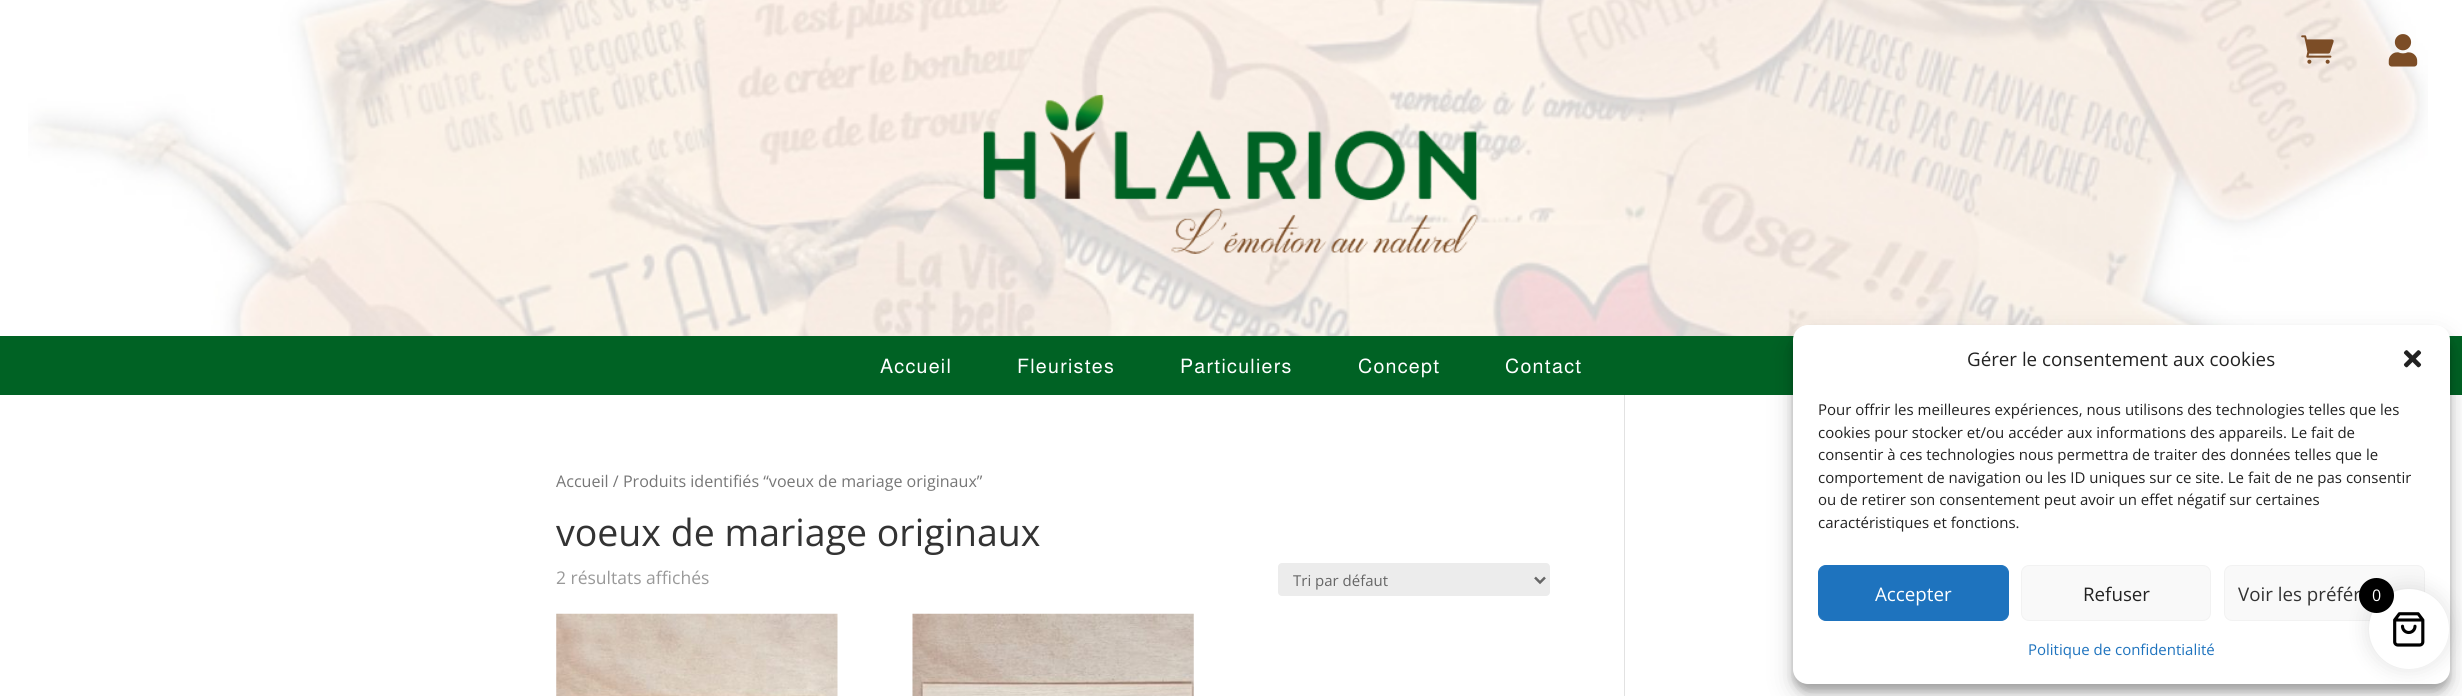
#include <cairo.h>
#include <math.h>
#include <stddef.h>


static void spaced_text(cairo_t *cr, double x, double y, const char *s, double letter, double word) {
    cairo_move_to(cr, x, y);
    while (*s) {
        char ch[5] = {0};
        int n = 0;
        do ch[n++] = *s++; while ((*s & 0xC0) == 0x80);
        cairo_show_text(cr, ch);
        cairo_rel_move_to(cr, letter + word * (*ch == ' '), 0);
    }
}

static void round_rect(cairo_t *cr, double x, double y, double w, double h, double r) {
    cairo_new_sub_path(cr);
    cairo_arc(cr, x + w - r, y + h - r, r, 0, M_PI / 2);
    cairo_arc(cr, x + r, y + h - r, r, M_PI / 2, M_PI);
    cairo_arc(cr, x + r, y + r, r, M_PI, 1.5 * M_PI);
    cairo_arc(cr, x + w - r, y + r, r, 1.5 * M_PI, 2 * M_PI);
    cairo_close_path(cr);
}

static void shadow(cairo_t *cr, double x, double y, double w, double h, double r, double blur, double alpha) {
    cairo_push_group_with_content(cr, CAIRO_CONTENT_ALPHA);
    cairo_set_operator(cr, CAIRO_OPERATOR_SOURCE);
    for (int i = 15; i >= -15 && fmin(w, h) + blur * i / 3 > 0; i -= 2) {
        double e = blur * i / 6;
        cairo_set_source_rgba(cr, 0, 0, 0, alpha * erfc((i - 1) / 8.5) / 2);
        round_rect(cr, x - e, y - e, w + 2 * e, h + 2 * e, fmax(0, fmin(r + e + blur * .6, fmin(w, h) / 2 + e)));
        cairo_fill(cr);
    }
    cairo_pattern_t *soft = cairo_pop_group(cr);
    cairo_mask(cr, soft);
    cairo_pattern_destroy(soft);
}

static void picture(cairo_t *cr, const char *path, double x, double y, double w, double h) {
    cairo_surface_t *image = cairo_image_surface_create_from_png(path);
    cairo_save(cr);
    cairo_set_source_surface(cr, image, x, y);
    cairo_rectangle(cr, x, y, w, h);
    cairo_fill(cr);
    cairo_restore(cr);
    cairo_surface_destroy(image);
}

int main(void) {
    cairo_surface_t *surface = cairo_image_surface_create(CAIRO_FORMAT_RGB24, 2462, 696);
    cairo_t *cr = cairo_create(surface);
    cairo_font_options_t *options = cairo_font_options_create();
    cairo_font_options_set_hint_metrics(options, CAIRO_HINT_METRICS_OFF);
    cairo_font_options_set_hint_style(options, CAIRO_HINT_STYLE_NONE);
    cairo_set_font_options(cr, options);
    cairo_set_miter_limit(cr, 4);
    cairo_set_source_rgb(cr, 1, 1, 1);
    cairo_paint(cr);
    picture(cr, "img1.png", 28, 0, 2400, 336);
    picture(cr, "img2.png", 2301, 35, 33, 29);
    picture(cr, "img3.png", 2388, 34, 30, 33);
    picture(cr, "img4.png", 983, 94, 495, 160);
    cairo_set_source_rgb(cr, 0, 0.384, 0.141);
    cairo_rectangle(cr, 0, 336, 2462, 59);
    cairo_fill(cr);
    cairo_select_font_face(cr, "Almarai", CAIRO_FONT_SLANT_NORMAL, CAIRO_FONT_WEIGHT_NORMAL);
    cairo_set_font_size(cr, 20);
    cairo_set_source_rgb(cr, 1, 1, 1);
    spaced_text(cr, 880, 373, "Accueil", 1.25, 0);
    spaced_text(cr, 1017, 373, "Fleuristes", 1.25, 0);
    spaced_text(cr, 1180, 373, "Particuliers", 1.25, 0);
    spaced_text(cr, 1358, 373, "Concept", 1.25, 0);
    spaced_text(cr, 1505, 373, "Contact", 1.25, 0);
    cairo_select_font_face(cr, "Open Sans", CAIRO_FONT_SLANT_NORMAL, CAIRO_FONT_WEIGHT_NORMAL);
    cairo_set_font_size(cr, 16.1);
    cairo_set_source_rgb(cr, 0.463, 0.463, 0.463);
    cairo_move_to(cr, 556, 487);
    cairo_show_text(cr, "Accueil / Produits identifiés “voeux de mariage originaux”");
    cairo_set_font_size(cr, 37.5);
    cairo_set_source_rgb(cr, 0.2, 0.2, 0.2);
    cairo_move_to(cr, 556, 546);
    cairo_show_text(cr, "voeux de mariage originaux");
    cairo_set_font_size(cr, 17.5);
    cairo_set_source_rgb(cr, 0.6, 0.6, 0.6);
    cairo_move_to(cr, 556, 584);
    cairo_show_text(cr, "2 résultats affichés");
    cairo_set_source_rgb(cr, 0.925, 0.925, 0.925);
    round_rect(cr, 1278, 563, 272, 33, 4);
    cairo_fill(cr);
    cairo_new_path(cr);
    cairo_move_to(cr, 1535, 577.5);
    cairo_line_to(cr, 1540, 582.5);
    cairo_line_to(cr, 1545, 577.5);
    cairo_set_source_rgb(cr, 0.4, 0.4, 0.4);
    cairo_set_line_width(cr, 2.5);
    cairo_stroke(cr);
    cairo_set_font_size(cr, 15);
    cairo_move_to(cr, 1293, 586);
    cairo_show_text(cr, "Tri par défaut");
    picture(cr, "img5.png", 556, 613, 282, 83);
    picture(cr, "img6.png", 912, 613, 282, 83);
    cairo_set_source_rgb(cr, 0.886, 0.886, 0.886);
    cairo_rectangle(cr, 1624, 395, 1, 301);
    cairo_fill(cr);
    cairo_set_source_rgb(cr, 0, 0, 0);
    shadow(cr, 1793, 333, 657, 358, 15, 4, 0.23);
    shadow(cr, 1793, 338, 657, 358, 15, 12.5, 0.19);
    cairo_set_source_rgb(cr, 1, 1, 1);
    round_rect(cr, 1793, 325, 657, 359, 15);
    cairo_fill(cr);
    cairo_set_font_size(cr, 18.75);
    cairo_set_source_rgb(cr, 0.133, 0.133, 0.133);
    cairo_move_to(cr, 1967, 366);
    cairo_show_text(cr, "Gérer le consentement aux cookies");
    picture(cr, "img7.png", 2403, 350, 19, 18);
    cairo_set_font_size(cr, 15);
    cairo_move_to(cr, 1818, 415);
    cairo_show_text(cr, "Pour offrir les meilleures expériences, nous utilisons des technologies telles que les");
    cairo_move_to(cr, 1818, 438);
    cairo_show_text(cr, "cookies pour stocker et/ou accéder aux informations des appareils. Le fait de");
    cairo_move_to(cr, 1818, 460);
    cairo_show_text(cr, "consentir à ces technologies nous permettra de traiter des données telles que le");
    cairo_move_to(cr, 1818, 483);
    cairo_show_text(cr, "comportement de navigation ou les ID uniques sur ce site. Le fait de ne pas consentir");
    cairo_move_to(cr, 1818, 505);
    cairo_show_text(cr, "ou de retirer son consentement peut avoir un effet négatif sur certaines");
    cairo_move_to(cr, 1818, 528);
    cairo_show_text(cr, "caractéristiques et fonctions.");
    cairo_set_source_rgb(cr, 0.118, 0.451, 0.745);
    round_rect(cr, 1818.5, 565.5, 190, 55, 7.5);
    cairo_fill_preserve(cr);
    cairo_set_line_width(cr, 1);
    cairo_stroke(cr);
    cairo_set_font_size(cr, 18.75);
    cairo_set_source_rgb(cr, 1, 1, 1);
    cairo_move_to(cr, 1875, 601);
    cairo_show_text(cr, "Accepter");
    cairo_set_source_rgb(cr, 0.976, 0.976, 0.976);
    round_rect(cr, 2021.5, 565.5, 189, 55, 7.5);
    cairo_fill_preserve(cr);
    cairo_set_source_rgb(cr, 0.949, 0.949, 0.949);
    cairo_stroke(cr);
    cairo_set_source_rgb(cr, 0.133, 0.133, 0.133);
    cairo_move_to(cr, 2083, 601);
    cairo_show_text(cr, "Refuser");
    cairo_set_source_rgb(cr, 0.976, 0.976, 0.976);
    round_rect(cr, 2224.5, 565.5, 200, 55, 7.5);
    cairo_fill_preserve(cr);
    cairo_set_source_rgb(cr, 0.949, 0.949, 0.949);
    cairo_stroke(cr);
    cairo_set_source_rgb(cr, 0.2, 0.2, 0.2);
    cairo_move_to(cr, 2238, 601);
    cairo_show_text(cr, "Voir les préfér");
    cairo_set_font_size(cr, 15);
    cairo_set_source_rgb(cr, 0.118, 0.451, 0.745);
    cairo_move_to(cr, 2028, 655);
    cairo_show_text(cr, "Politique de confidentialité");
    cairo_set_source_rgb(cr, 0, 0, 0);
    shadow(cr, 2366, 586, 85, 85, 42.5, 9.5, 0.1);
    cairo_set_source_rgb(cr, 1, 1, 1);
    cairo_arc(cr, 2409, 629, 40, 0, 2 * M_PI);
    cairo_fill(cr);
    picture(cr, "img8.png", 2393, 612, 32, 35);
    cairo_set_source_rgb(cr, 0, 0, 0);
    cairo_arc(cr, 2376.5, 595.5, 17.5, 0, 2 * M_PI);
    cairo_fill(cr);
    cairo_set_font_size(cr, 16);
    cairo_set_source_rgb(cr, 1, 1, 1);
    cairo_move_to(cr, 2372, 601);
    cairo_show_text(cr, "0");
    cairo_surface_write_to_png(surface, "page.png");
    cairo_font_options_destroy(options);
    cairo_destroy(cr);
    cairo_surface_destroy(surface);
    return 0;
}
